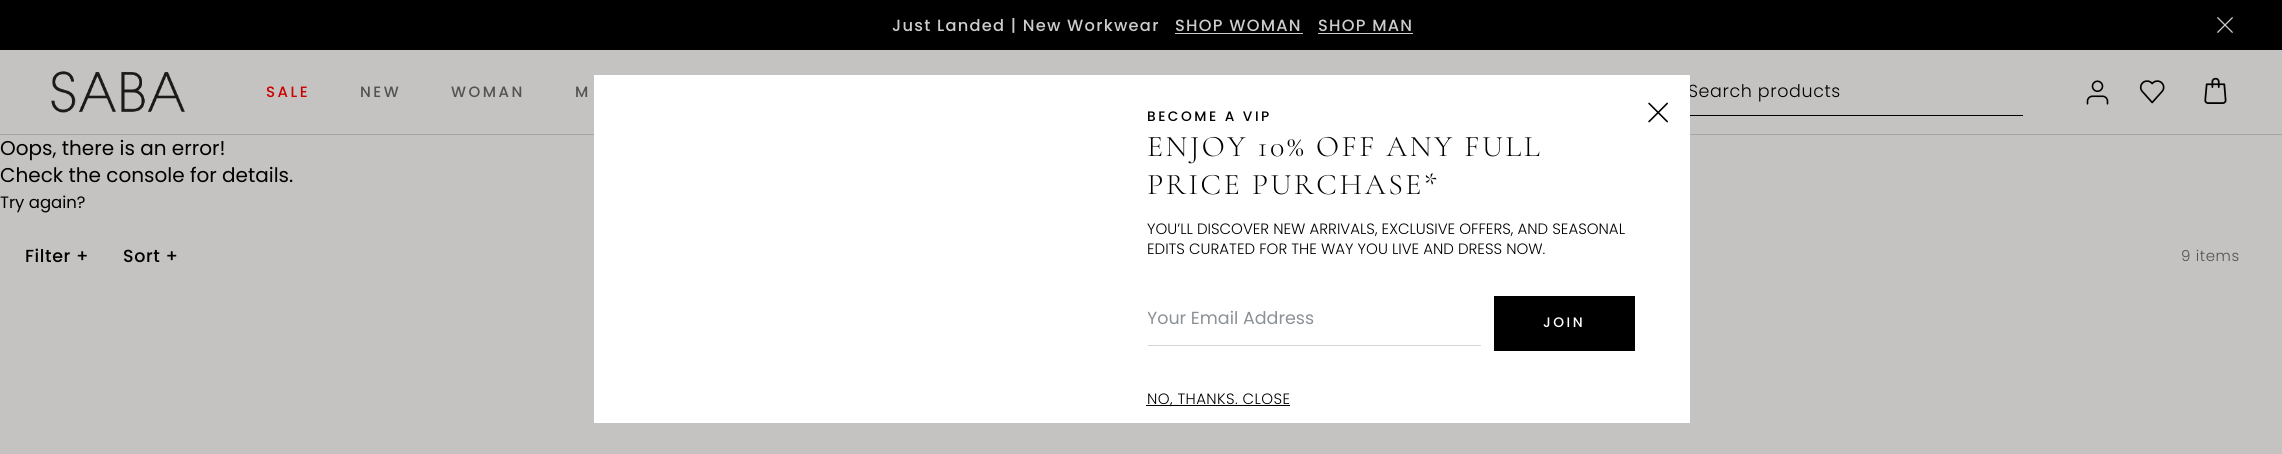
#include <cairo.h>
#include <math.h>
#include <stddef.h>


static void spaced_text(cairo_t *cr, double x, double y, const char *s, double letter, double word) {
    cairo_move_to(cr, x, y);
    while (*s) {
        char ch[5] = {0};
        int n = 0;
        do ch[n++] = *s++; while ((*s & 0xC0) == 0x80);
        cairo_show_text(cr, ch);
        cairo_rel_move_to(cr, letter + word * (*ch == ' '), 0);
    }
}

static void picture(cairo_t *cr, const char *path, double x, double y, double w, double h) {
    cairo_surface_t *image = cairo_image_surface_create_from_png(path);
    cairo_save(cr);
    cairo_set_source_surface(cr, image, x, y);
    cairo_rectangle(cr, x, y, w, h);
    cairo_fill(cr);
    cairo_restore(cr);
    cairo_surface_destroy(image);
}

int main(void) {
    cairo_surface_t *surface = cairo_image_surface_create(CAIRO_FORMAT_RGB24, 2282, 454);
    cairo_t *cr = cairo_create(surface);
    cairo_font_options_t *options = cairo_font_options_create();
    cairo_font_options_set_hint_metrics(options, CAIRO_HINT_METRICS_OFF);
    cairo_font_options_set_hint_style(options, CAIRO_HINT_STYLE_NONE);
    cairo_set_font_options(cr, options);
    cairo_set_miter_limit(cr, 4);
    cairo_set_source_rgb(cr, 0.769, 0.765, 0.757);
    cairo_paint(cr);
    cairo_set_source_rgb(cr, 0, 0, 0);
    cairo_rectangle(cr, 0, 0, 2282, 50);
    cairo_fill(cr);
    cairo_select_font_face(cr, "Poppins Medium", CAIRO_FONT_SLANT_NORMAL, CAIRO_FONT_WEIGHT_NORMAL);
    cairo_set_font_size(cr, 16.25);
    cairo_set_source_rgb(cr, 0.8, 0.8, 0.8);
    spaced_text(cr, 892, 31, "Just Landed | New Workwear", 1.25, 0);
    spaced_text(cr, 1175, 31, "SHOP WOMAN", 1.25, 0);
    cairo_rectangle(cr, 1175, 33, 128, 1);
    cairo_fill(cr);
    spaced_text(cr, 1318, 31, "SHOP MAN", 1.25, 0);
    cairo_rectangle(cr, 1318, 33, 95, 1);
    cairo_fill(cr);
    picture(cr, "img1.png", 2217, 17, 16, 16);
    cairo_set_source_rgb(cr, 0.655, 0.651, 0.635);
    cairo_rectangle(cr, 0, 134, 2282, 1);
    cairo_fill(cr);
    picture(cr, "img2.png", 51, 71, 134, 42);
    cairo_set_font_size(cr, 15);
    cairo_set_source_rgb(cr, 0.8, 0, 0);
    spaced_text(cr, 266, 97, "SALE", 2.5, 0);
    cairo_set_source_rgb(cr, 0.322, 0.322, 0.322);
    spaced_text(cr, 360, 97, "NEW", 2.5, 0);
    spaced_text(cr, 451, 97, "WOMAN", 2.5, 0);
    spaced_text(cr, 575, 97, "M", 2.5, 0);
    cairo_set_source_rgb(cr, 0, 0, 0);
    cairo_rectangle(cr, 1690, 115, 333, 1);
    cairo_fill(cr);
    cairo_select_font_face(cr, "Poppins Light", CAIRO_FONT_SLANT_NORMAL, CAIRO_FONT_WEIGHT_NORMAL);
    cairo_set_font_size(cr, 17.5);
    spaced_text(cr, 1688, 97, "Search products", 0.6, 0);
    picture(cr, "img3.png", 2086, 80, 23, 25);
    picture(cr, "img4.png", 2139, 80, 26, 24);
    picture(cr, "img5.png", 2204, 77, 23, 27);
    cairo_select_font_face(cr, "Poppins", CAIRO_FONT_SLANT_NORMAL, CAIRO_FONT_WEIGHT_NORMAL);
    cairo_set_font_size(cr, 20);
    cairo_move_to(cr, 0, 155);
    cairo_show_text(cr, "Oops, there is an error!");
    cairo_move_to(cr, 0, 182);
    cairo_show_text(cr, "Check the console for details.");
    cairo_set_font_size(cr, 16.5);
    cairo_move_to(cr, 0, 208);
    cairo_show_text(cr, "Try again?");
    cairo_set_source_rgb(cr, 1, 1, 1);
    cairo_rectangle(cr, 594, 75, 1096, 348);
    cairo_fill(cr);
    cairo_select_font_face(cr, "Poppins Medium", CAIRO_FONT_SLANT_NORMAL, CAIRO_FONT_WEIGHT_NORMAL);
    cairo_set_font_size(cr, 13.75);
    cairo_set_source_rgb(cr, 0, 0, 0);
    spaced_text(cr, 1147, 121, "BECOME A VIP", 2.5, 0);
    cairo_select_font_face(cr, "Cormorant Garamond Light", CAIRO_FONT_SLANT_NORMAL, CAIRO_FONT_WEIGHT_NORMAL);
    cairo_set_font_size(cr, 30);
    spaced_text(cr, 1147, 156, "ENJOY 10% OFF ANY FULL", 2.5, 0);
    spaced_text(cr, 1147, 194, "PRICE PURCHASE*", 2.5, 0);
    cairo_select_font_face(cr, "Poppins Light", CAIRO_FONT_SLANT_NORMAL, CAIRO_FONT_WEIGHT_NORMAL);
    cairo_set_font_size(cr, 15);
    cairo_move_to(cr, 1147, 234);
    cairo_show_text(cr, "YOU’LL DISCOVER NEW ARRIVALS, EXCLUSIVE OFFERS, AND SEASONAL");
    cairo_move_to(cr, 1147, 254);
    cairo_show_text(cr, "EDITS CURATED FOR THE WAY YOU LIVE AND DRESS NOW.");
    cairo_save(cr);
    cairo_rectangle(cr, 1148, 305, 333, 26);
    cairo_clip(cr);
    cairo_select_font_face(cr, "Poppins", CAIRO_FONT_SLANT_NORMAL, CAIRO_FONT_WEIGHT_NORMAL);
    cairo_set_font_size(cr, 17.5);
    cairo_set_source_rgb(cr, 0.549, 0.569, 0.588);
    cairo_move_to(cr, 1147, 324);
    cairo_show_text(cr, "Your Email Address");
    cairo_restore(cr);
    cairo_set_source_rgb(cr, 0.827, 0.839, 0.851);
    cairo_rectangle(cr, 1148, 345, 333, 1);
    cairo_fill(cr);
    cairo_set_source_rgb(cr, 0, 0, 0);
    cairo_rectangle(cr, 1494, 296, 141, 55);
    cairo_fill(cr);
    cairo_select_font_face(cr, "Poppins Medium", CAIRO_FONT_SLANT_NORMAL, CAIRO_FONT_WEIGHT_NORMAL);
    cairo_set_font_size(cr, 13.75);
    cairo_set_source_rgb(cr, 1, 1, 1);
    spaced_text(cr, 1543, 327, "JOIN", 2.5, 0);
    cairo_set_source_rgb(cr, 0, 0, 0);
    cairo_rectangle(cr, 1146, 405, 144, 1);
    cairo_fill(cr);
    cairo_select_font_face(cr, "Poppins Light", CAIRO_FONT_SLANT_NORMAL, CAIRO_FONT_WEIGHT_NORMAL);
    cairo_set_font_size(cr, 15);
    spaced_text(cr, 1147, 404, "NO, THANKS. CLOSE", 0.4, 0);
    picture(cr, "img6.png", 1648, 102, 20, 21);
    cairo_select_font_face(cr, "Poppins Medium", CAIRO_FONT_SLANT_NORMAL, CAIRO_FONT_WEIGHT_NORMAL);
    cairo_set_font_size(cr, 17.5);
    spaced_text(cr, 25, 262, "Filter +", 0.6, 0);
    spaced_text(cr, 123, 262, "Sort +", 0.6, 0);
    cairo_select_font_face(cr, "Poppins Light", CAIRO_FONT_SLANT_NORMAL, CAIRO_FONT_WEIGHT_NORMAL);
    cairo_set_font_size(cr, 15);
    cairo_set_source_rgb(cr, 0.322, 0.322, 0.322);
    spaced_text(cr, 2181, 261, "9 items", 0.6, 0);
    cairo_surface_write_to_png(surface, "page.png");
    cairo_font_options_destroy(options);
    cairo_destroy(cr);
    cairo_surface_destroy(surface);
    return 0;
}
